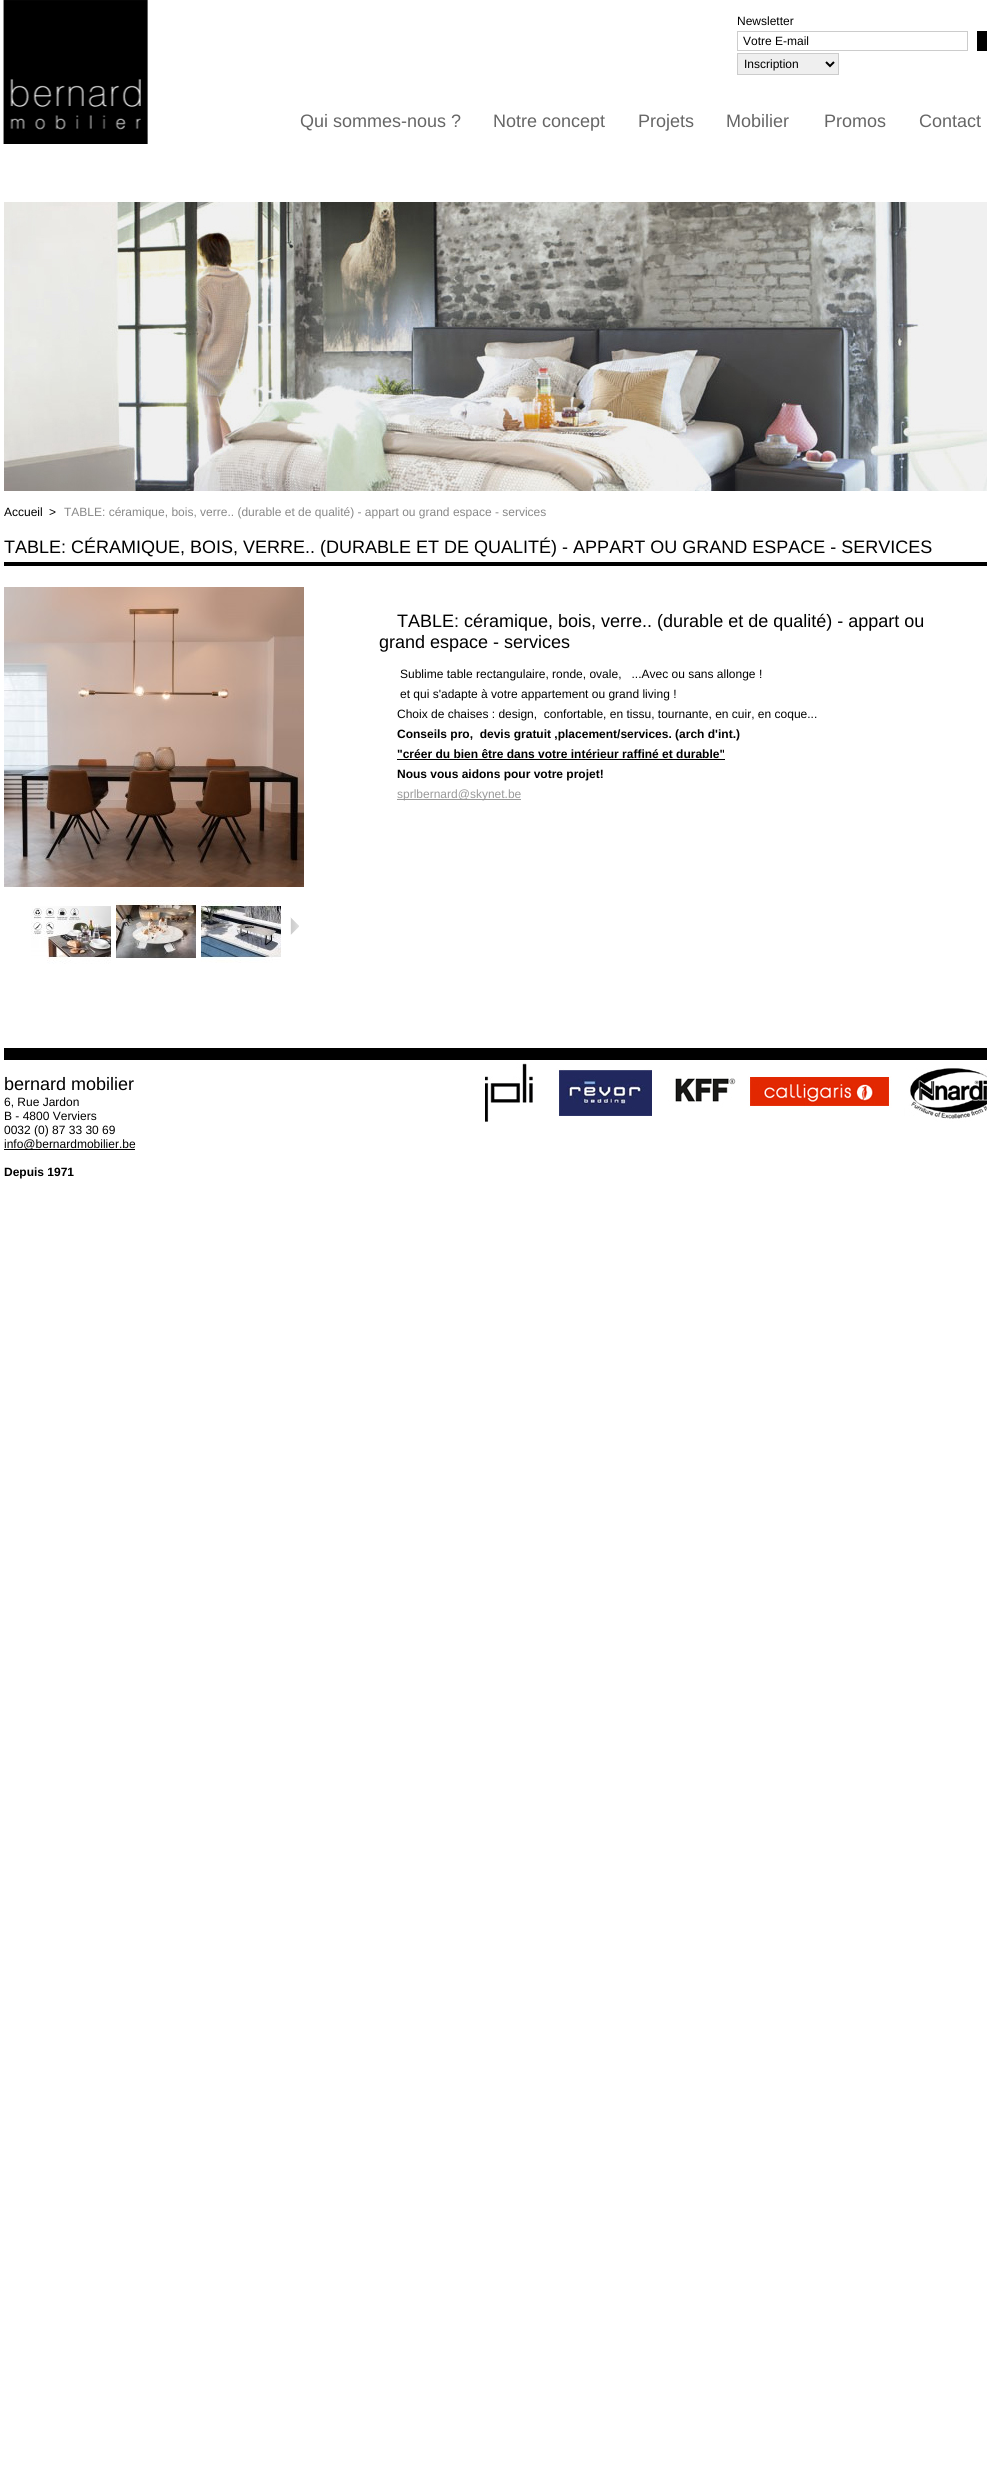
#include <cairo.h>
#include <math.h>
#include <stddef.h>


static void picture(cairo_t *cr, const char *path, double x, double y, double w, double h) {
    cairo_surface_t *image = cairo_image_surface_create_from_png(path);
    cairo_save(cr);
    cairo_set_source_surface(cr, image, x, y);
    cairo_rectangle(cr, x, y, w, h);
    cairo_fill(cr);
    cairo_restore(cr);
    cairo_surface_destroy(image);
}

int main(void) {
    cairo_surface_t *surface = cairo_image_surface_create(CAIRO_FORMAT_RGB24, 987, 2487);
    cairo_t *cr = cairo_create(surface);
    cairo_font_options_t *options = cairo_font_options_create();
    cairo_font_options_set_hint_metrics(options, CAIRO_HINT_METRICS_OFF);
    cairo_font_options_set_hint_style(options, CAIRO_HINT_STYLE_NONE);
    cairo_set_font_options(cr, options);
    cairo_set_miter_limit(cr, 4);
    cairo_set_source_rgb(cr, 1, 1, 1);
    cairo_paint(cr);
    picture(cr, "img1.png", 3, 0, 145, 144);
    cairo_select_font_face(cr, "Liberation Sans", CAIRO_FONT_SLANT_NORMAL, CAIRO_FONT_WEIGHT_NORMAL);
    cairo_set_font_size(cr, 12);
    cairo_set_source_rgb(cr, 0, 0, 0);
    cairo_move_to(cr, 737, 25);
    cairo_show_text(cr, "Newsletter");
    cairo_rectangle(cr, 737.5, 31.5, 230, 19);
    cairo_set_source_rgb(cr, 0.8, 0.8, 0.8);
    cairo_set_line_width(cr, 1);
    cairo_stroke(cr);
    cairo_set_source_rgb(cr, 0, 0, 0);
    cairo_move_to(cr, 743, 45);
    cairo_show_text(cr, "Votre E-mail");
    cairo_rectangle(cr, 977, 31, 10, 20);
    cairo_fill(cr);
    cairo_set_source_rgb(cr, 0.937, 0.937, 0.937);
    cairo_rectangle(cr, 737.5, 53.5, 101, 21);
    cairo_fill_preserve(cr);
    cairo_set_source_rgb(cr, 0.8, 0.8, 0.8);
    cairo_stroke(cr);
    cairo_new_path(cr);
    cairo_move_to(cr, 826, 62);
    cairo_line_to(cr, 830, 66);
    cairo_line_to(cr, 834, 62);
    cairo_set_source_rgb(cr, 0, 0, 0);
    cairo_set_line_width(cr, 2);
    cairo_stroke(cr);
    cairo_move_to(cr, 744, 68);
    cairo_show_text(cr, "Inscription");
    cairo_set_font_size(cr, 18);
    cairo_set_source_rgb(cr, 0.4, 0.4, 0.4);
    cairo_move_to(cr, 300, 127);
    cairo_show_text(cr, "Qui sommes-nous ?");
    cairo_move_to(cr, 493, 127);
    cairo_show_text(cr, "Notre concept");
    cairo_move_to(cr, 638, 127);
    cairo_show_text(cr, "Projets");
    cairo_move_to(cr, 726, 127);
    cairo_show_text(cr, "Mobilier");
    cairo_move_to(cr, 824, 127);
    cairo_show_text(cr, "Promos");
    cairo_move_to(cr, 919, 127);
    cairo_show_text(cr, "Contact");
    picture(cr, "img2.png", 4, 202, 983, 289);
    cairo_set_font_size(cr, 12);
    cairo_set_source_rgb(cr, 0, 0, 0);
    cairo_move_to(cr, 4, 516);
    cairo_show_text(cr, "Accueil");
    cairo_move_to(cr, 49, 516);
    cairo_show_text(cr, ">");
    cairo_set_source_rgb(cr, 0.533, 0.533, 0.533);
    cairo_move_to(cr, 64, 516);
    cairo_show_text(cr, "TABLE: céramique, bois, verre.. (durable et de qualité) - appart ou grand espace - services");
    cairo_set_source_rgb(cr, 0, 0, 0);
    cairo_rectangle(cr, 4, 562, 983, 4);
    cairo_fill(cr);
    cairo_set_font_size(cr, 18);
    cairo_move_to(cr, 4, 553);
    cairo_show_text(cr, "TABLE: CÉRAMIQUE, BOIS, VERRE.. (DURABLE ET DE QUALITÉ) - APPART OU GRAND ESPACE - SERVICES");
    picture(cr, "img3.png", 4, 587, 300, 300);
    picture(cr, "img4.png", 31, 906, 80, 58);
    picture(cr, "img5.png", 116, 900, 80, 59);
    picture(cr, "img6.png", 201, 900, 80, 63);
    picture(cr, "img7.png", 290, 917, 9, 18);
    cairo_move_to(cr, 397, 627);
    cairo_show_text(cr, "TABLE: céramique, bois, verre.. (durable et de qualité) - appart ou");
    cairo_move_to(cr, 379, 648);
    cairo_show_text(cr, "grand espace - services");
    cairo_set_font_size(cr, 12);
    cairo_move_to(cr, 400, 678);
    cairo_show_text(cr, "Sublime table rectangulaire, ronde, ovale,   ...Avec ou sans allonge !");
    cairo_move_to(cr, 400, 698);
    cairo_show_text(cr, "et qui s'adapte à votre appartement ou grand living !");
    cairo_move_to(cr, 397, 718);
    cairo_show_text(cr, "Choix de chaises : design,  confortable, en tissu, tournante, en cuir, en coque...");
    cairo_select_font_face(cr, "Liberation Sans", CAIRO_FONT_SLANT_NORMAL, CAIRO_FONT_WEIGHT_BOLD);
    cairo_move_to(cr, 397, 738);
    cairo_show_text(cr, "Conseils pro,  devis gratuit ,placement/services. (arch d'int.)");
    cairo_move_to(cr, 397, 758);
    cairo_show_text(cr, "\"créer du bien être dans votre intérieur raffiné et durable\"");
    cairo_rectangle(cr, 397, 759, 328, 1);
    cairo_fill(cr);
    cairo_move_to(cr, 397, 778);
    cairo_show_text(cr, "Nous vous aidons pour votre projet!");
    cairo_set_source_rgb(cr, 0.6, 0.6, 0.6);
    cairo_rectangle(cr, 397, 799, 124, 1);
    cairo_fill(cr);
    cairo_select_font_face(cr, "Liberation Sans", CAIRO_FONT_SLANT_NORMAL, CAIRO_FONT_WEIGHT_NORMAL);
    cairo_move_to(cr, 397, 798);
    cairo_show_text(cr, "sprlbernard@skynet.be");
    cairo_set_source_rgb(cr, 0, 0, 0);
    cairo_rectangle(cr, 4, 1048, 983, 12);
    cairo_fill(cr);
    cairo_set_font_size(cr, 18);
    cairo_move_to(cr, 4, 1090);
    cairo_show_text(cr, "bernard mobilier");
    cairo_set_font_size(cr, 12);
    cairo_move_to(cr, 4, 1106);
    cairo_show_text(cr, "6, Rue Jardon");
    cairo_move_to(cr, 4, 1120);
    cairo_show_text(cr, "B - 4800 Verviers");
    cairo_move_to(cr, 4, 1134);
    cairo_show_text(cr, "0032 (0) 87 33 30 69");
    cairo_rectangle(cr, 4, 1149, 131, 1);
    cairo_fill(cr);
    cairo_move_to(cr, 4, 1148);
    cairo_show_text(cr, "info@bernardmobilier.be");
    cairo_select_font_face(cr, "Liberation Sans", CAIRO_FONT_SLANT_NORMAL, CAIRO_FONT_WEIGHT_BOLD);
    cairo_move_to(cr, 4, 1176);
    cairo_show_text(cr, "Depuis 1971");
    picture(cr, "img8.png", 485, 1063, 502, 59);
    cairo_surface_write_to_png(surface, "page.png");
    cairo_font_options_destroy(options);
    cairo_destroy(cr);
    cairo_surface_destroy(surface);
    return 0;
}
